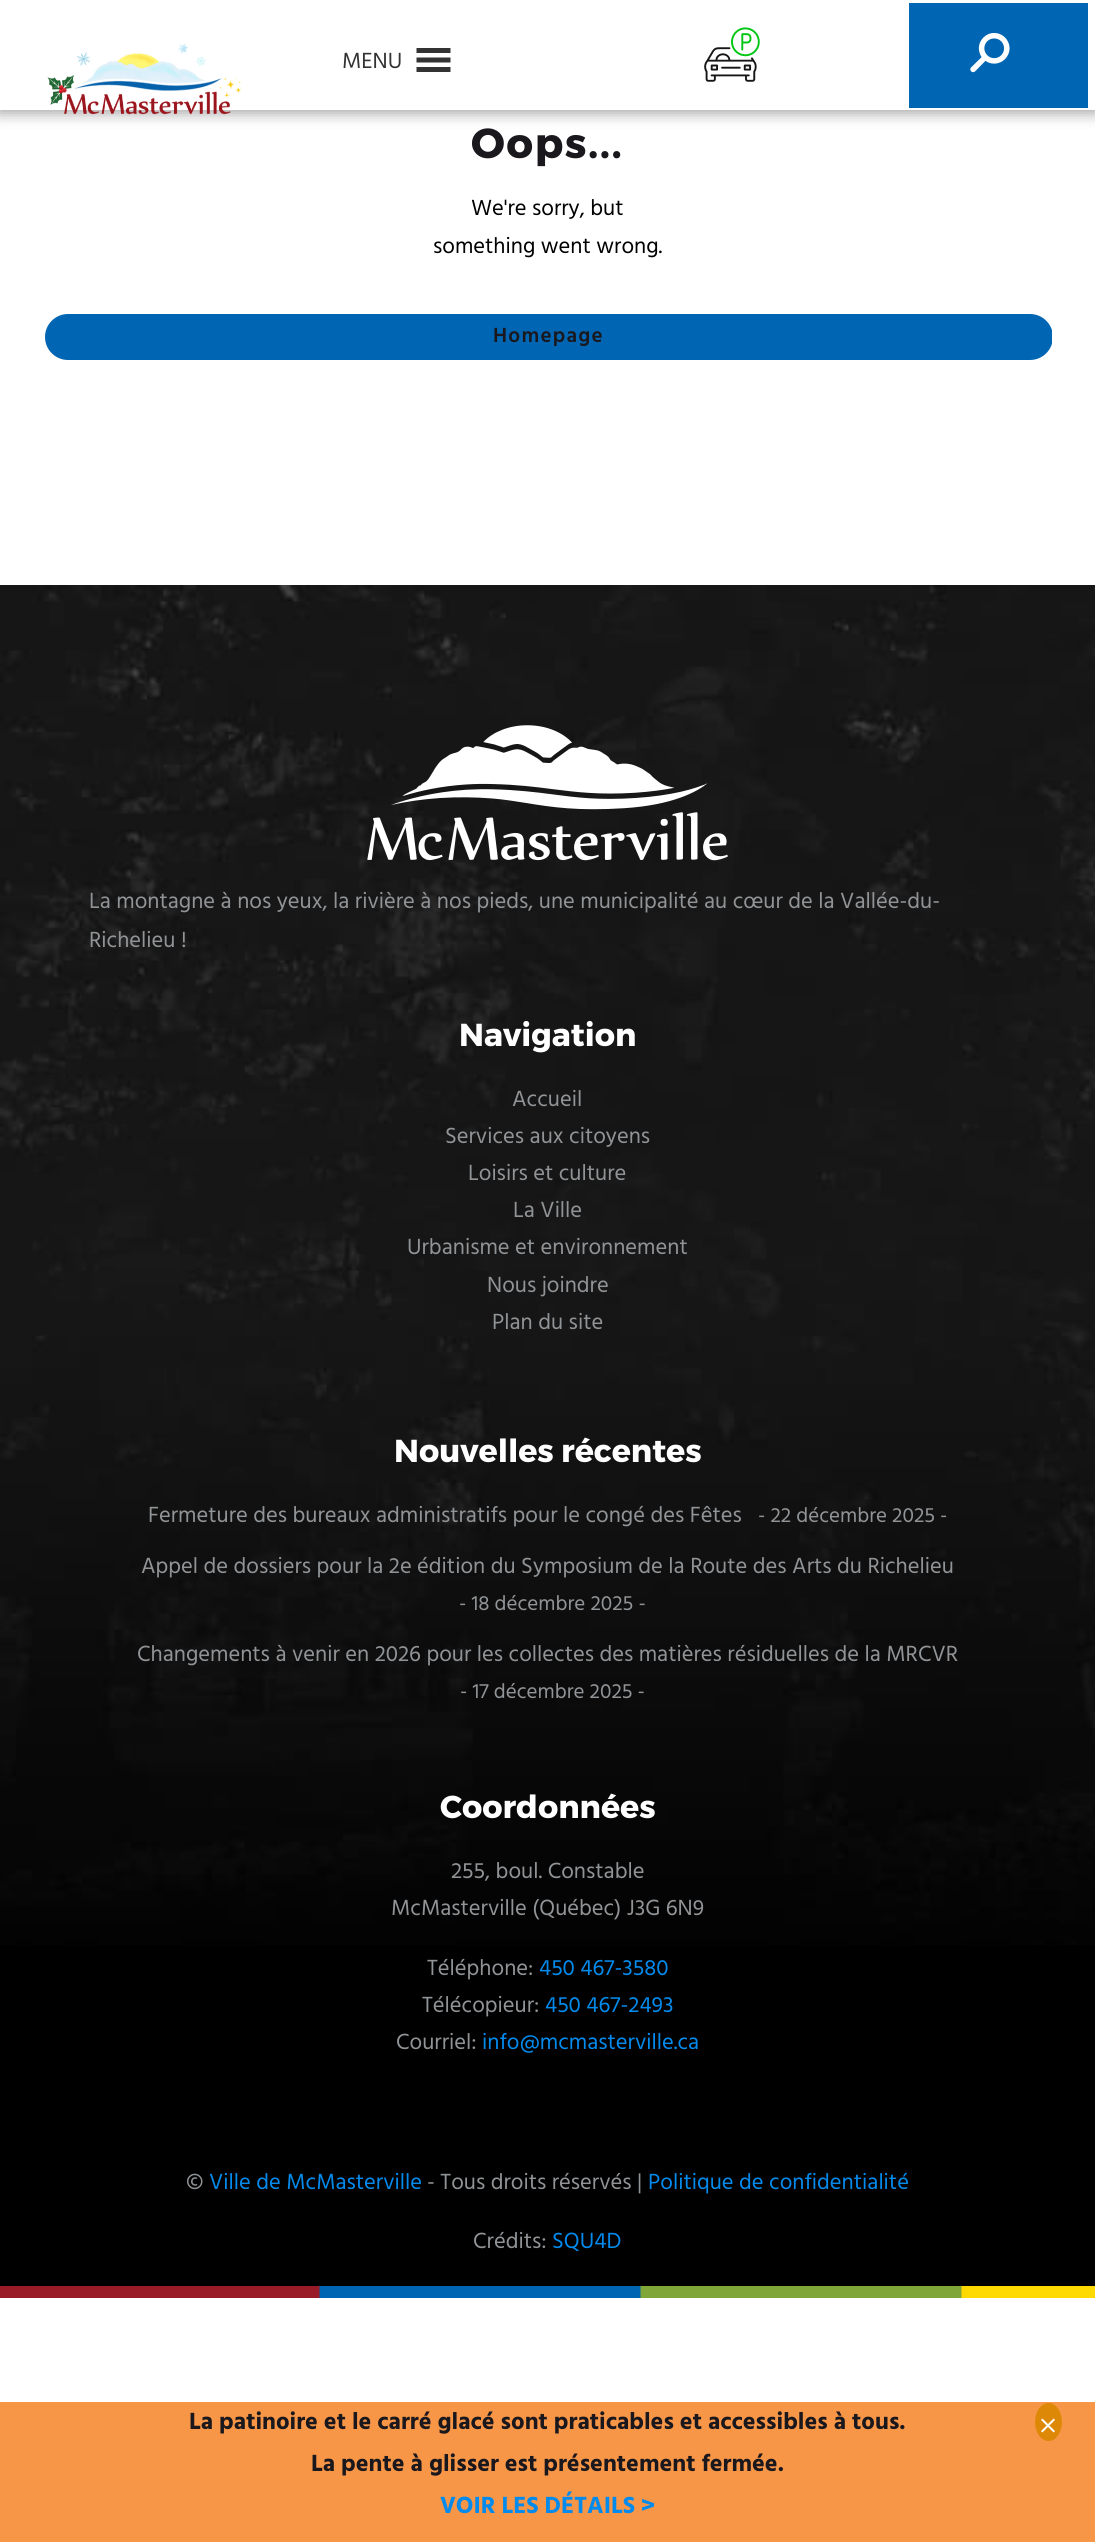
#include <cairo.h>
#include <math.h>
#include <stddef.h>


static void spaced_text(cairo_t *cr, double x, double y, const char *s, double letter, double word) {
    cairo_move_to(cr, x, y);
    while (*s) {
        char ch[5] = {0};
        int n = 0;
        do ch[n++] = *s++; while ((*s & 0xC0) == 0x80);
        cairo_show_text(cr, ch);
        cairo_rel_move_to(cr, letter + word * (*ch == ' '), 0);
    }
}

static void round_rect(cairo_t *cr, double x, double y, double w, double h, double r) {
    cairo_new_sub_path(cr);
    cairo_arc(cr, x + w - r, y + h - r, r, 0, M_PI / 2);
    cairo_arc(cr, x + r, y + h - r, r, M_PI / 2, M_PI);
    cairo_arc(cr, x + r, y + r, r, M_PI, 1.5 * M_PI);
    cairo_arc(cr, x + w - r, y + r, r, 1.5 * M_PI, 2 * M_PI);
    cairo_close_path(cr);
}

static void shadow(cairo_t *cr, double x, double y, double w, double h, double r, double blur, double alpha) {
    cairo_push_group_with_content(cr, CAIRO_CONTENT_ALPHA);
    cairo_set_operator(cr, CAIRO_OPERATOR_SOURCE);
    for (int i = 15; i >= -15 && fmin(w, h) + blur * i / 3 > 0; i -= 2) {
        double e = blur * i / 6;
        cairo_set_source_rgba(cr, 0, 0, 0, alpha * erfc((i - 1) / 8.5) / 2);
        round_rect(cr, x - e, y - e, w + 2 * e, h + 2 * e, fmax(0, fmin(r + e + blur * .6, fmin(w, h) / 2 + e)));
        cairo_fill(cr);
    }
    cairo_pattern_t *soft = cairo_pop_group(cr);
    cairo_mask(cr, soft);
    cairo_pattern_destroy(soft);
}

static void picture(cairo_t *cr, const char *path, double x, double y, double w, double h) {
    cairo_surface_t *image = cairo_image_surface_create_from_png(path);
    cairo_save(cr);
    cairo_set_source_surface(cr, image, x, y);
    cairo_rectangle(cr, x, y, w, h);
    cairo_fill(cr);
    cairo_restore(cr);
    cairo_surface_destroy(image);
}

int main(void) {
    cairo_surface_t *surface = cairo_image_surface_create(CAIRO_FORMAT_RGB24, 1095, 2542);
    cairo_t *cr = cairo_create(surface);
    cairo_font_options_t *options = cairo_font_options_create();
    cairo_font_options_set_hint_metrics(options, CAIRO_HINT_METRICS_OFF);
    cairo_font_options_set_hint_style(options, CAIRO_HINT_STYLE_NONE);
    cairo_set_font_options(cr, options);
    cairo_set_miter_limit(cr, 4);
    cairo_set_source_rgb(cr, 1, 1, 1);
    cairo_paint(cr);
    cairo_set_source_rgb(cr, 0, 0, 0);
    shadow(cr, 0, 3, 1095, 110, 0, 7.5, 0.2);
    shadow(cr, -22, 3, 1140, 110, 0, 7.5, 0.2);
    cairo_set_source_rgb(cr, 1, 1, 1);
    cairo_rectangle(cr, 0, 0, 1095, 110);
    cairo_fill(cr);
    picture(cr, "img1.png", 47, 43, 194, 72);
    cairo_select_font_face(cr, "Hind", CAIRO_FONT_SLANT_NORMAL, CAIRO_FONT_WEIGHT_NORMAL);
    cairo_set_font_size(cr, 22.5);
    cairo_set_source_rgb(cr, 0.2, 0.2, 0.2);
    cairo_move_to(cr, 342, 68);
    cairo_show_text(cr, "MENU");
    cairo_new_path(cr);
    cairo_move_to(cr, 416.5, 72);
    cairo_line_to(cr, 450.5, 72);
    cairo_line_to(cr, 450.5, 67);
    cairo_line_to(cr, 416.5, 67);
    cairo_close_path(cr);
    cairo_move_to(cr, 416.5, 48);
    cairo_line_to(cr, 416.5, 53);
    cairo_line_to(cr, 450.5, 53);
    cairo_line_to(cr, 450.5, 48);
    cairo_close_path(cr);
    cairo_move_to(cr, 416.5, 62.5);
    cairo_line_to(cr, 450.5, 62.5);
    cairo_line_to(cr, 450.5, 57.5);
    cairo_line_to(cr, 416.5, 57.5);
    cairo_close_path(cr);
    cairo_fill(cr);
    picture(cr, "img2.png", 704, 27, 56, 55);
    cairo_set_source_rgb(cr, 0, 0.396, 0.702);
    cairo_rectangle(cr, 909, 3, 179, 105);
    cairo_fill(cr);
    picture(cr, "img3.png", 970, 33, 40, 40);
    cairo_select_font_face(cr, "Montserrat", CAIRO_FONT_SLANT_NORMAL, CAIRO_FONT_WEIGHT_BOLD);
    cairo_set_font_size(cr, 42);
    cairo_set_source_rgb(cr, 0.102, 0.094, 0.114);
    spaced_text(cr, 471, 158, "Oops...", 1.5, 0);
    cairo_select_font_face(cr, "Hind", CAIRO_FONT_SLANT_NORMAL, CAIRO_FONT_WEIGHT_NORMAL);
    cairo_set_font_size(cr, 22.5);
    cairo_set_source_rgb(cr, 0, 0, 0);
    cairo_move_to(cr, 471, 215);
    cairo_show_text(cr, "We're sorry, but");
    cairo_move_to(cr, 433, 253);
    cairo_show_text(cr, "something went wrong.");
    cairo_save(cr);
    cairo_rectangle(cr, 44, 0, 1008, 441);
    cairo_clip(cr);
    cairo_set_source_rgb(cr, 0, 0.4, 0.702);
    round_rect(cr, 45, 314, 1008, 46, 23);
    cairo_fill(cr);
    cairo_restore(cr);
    cairo_select_font_face(cr, "Hind SemiBold", CAIRO_FONT_SLANT_NORMAL, CAIRO_FONT_WEIGHT_NORMAL);
    cairo_set_font_size(cr, 21);
    cairo_set_source_rgb(cr, 0.102, 0.094, 0.114);
    spaced_text(cr, 493, 342, "Homepage", 1.25, 0);
    cairo_set_source_rgb(cr, 0, 0, 0);
    cairo_rectangle(cr, 0, 1945, 1095, 341);
    cairo_fill(cr);
    picture(cr, "img4.png", 0, 585, 1095, 1360);
    picture(cr, "img5.png", 367, 725, 361, 136);
    cairo_select_font_face(cr, "Hind", CAIRO_FONT_SLANT_NORMAL, CAIRO_FONT_WEIGHT_NORMAL);
    cairo_set_font_size(cr, 22.5);
    cairo_set_source_rgb(cr, 0.569, 0.58, 0.592);
    cairo_move_to(cr, 89, 908);
    cairo_show_text(cr, "La montagne à nos yeux, la rivière à nos pieds, une municipalité au cœur de la Vallée-du-");
    cairo_move_to(cr, 89, 947);
    cairo_show_text(cr, "Richelieu !");
    cairo_select_font_face(cr, "Montserrat", CAIRO_FONT_SLANT_NORMAL, CAIRO_FONT_WEIGHT_BOLD);
    cairo_set_font_size(cr, 31.75);
    cairo_set_source_rgb(cr, 1, 1, 1);
    cairo_move_to(cr, 459, 1046);
    cairo_show_text(cr, "Navigation");
    cairo_select_font_face(cr, "Hind", CAIRO_FONT_SLANT_NORMAL, CAIRO_FONT_WEIGHT_NORMAL);
    cairo_set_font_size(cr, 22.5);
    cairo_set_source_rgb(cr, 0.569, 0.58, 0.592);
    cairo_move_to(cr, 512, 1106);
    cairo_show_text(cr, "Accueil");
    cairo_move_to(cr, 445, 1143);
    cairo_show_text(cr, "Services aux citoyens");
    cairo_move_to(cr, 468, 1180);
    cairo_show_text(cr, "Loisirs et culture");
    cairo_move_to(cr, 513, 1217);
    cairo_show_text(cr, "La Ville");
    cairo_move_to(cr, 407, 1254);
    cairo_show_text(cr, "Urbanisme et environnement");
    cairo_move_to(cr, 487, 1292);
    cairo_show_text(cr, "Nous joindre");
    cairo_move_to(cr, 492, 1329);
    cairo_show_text(cr, "Plan du site");
    cairo_select_font_face(cr, "Montserrat", CAIRO_FONT_SLANT_NORMAL, CAIRO_FONT_WEIGHT_BOLD);
    cairo_set_font_size(cr, 31.75);
    cairo_set_source_rgb(cr, 1, 1, 1);
    cairo_move_to(cr, 394, 1462);
    cairo_show_text(cr, "Nouvelles récentes");
    cairo_select_font_face(cr, "Hind", CAIRO_FONT_SLANT_NORMAL, CAIRO_FONT_WEIGHT_NORMAL);
    cairo_set_font_size(cr, 22.5);
    cairo_set_source_rgb(cr, 0.569, 0.58, 0.592);
    cairo_move_to(cr, 148, 1522);
    cairo_show_text(cr, "Fermeture des bureaux administratifs pour le congé des Fêtes");
    cairo_set_font_size(cr, 21);
    cairo_move_to(cr, 758, 1522);
    cairo_show_text(cr, "- 22 décembre 2025 -");
    cairo_set_font_size(cr, 22.5);
    cairo_move_to(cr, 141, 1573);
    cairo_show_text(cr, "Appel de dossiers pour la 2e édition du Symposium de la Route des Arts du Richelieu");
    cairo_set_font_size(cr, 21);
    cairo_move_to(cr, 459, 1610);
    cairo_show_text(cr, "- 18 décembre 2025 -");
    cairo_set_font_size(cr, 22.5);
    cairo_move_to(cr, 137, 1661);
    cairo_show_text(cr, "Changements à venir en 2026 pour les collectes des matières résiduelles de la MRCVR");
    cairo_set_font_size(cr, 21);
    cairo_move_to(cr, 460, 1698);
    cairo_show_text(cr, "- 17 décembre 2025 -");
    cairo_select_font_face(cr, "Montserrat", CAIRO_FONT_SLANT_NORMAL, CAIRO_FONT_WEIGHT_BOLD);
    cairo_set_font_size(cr, 31.75);
    cairo_set_source_rgb(cr, 1, 1, 1);
    cairo_move_to(cr, 440, 1818);
    cairo_show_text(cr, "Coordonnées");
    cairo_select_font_face(cr, "Hind", CAIRO_FONT_SLANT_NORMAL, CAIRO_FONT_WEIGHT_NORMAL);
    cairo_set_font_size(cr, 22.5);
    cairo_set_source_rgb(cr, 0.569, 0.58, 0.592);
    cairo_move_to(cr, 451, 1878);
    cairo_show_text(cr, "255, boul. Constable");
    cairo_move_to(cr, 391, 1915);
    cairo_show_text(cr, "McMasterville (Québec) J3G 6N9");
    cairo_move_to(cr, 427, 1975);
    cairo_show_text(cr, "Téléphone:");
    cairo_set_source_rgb(cr, 0.008, 0.545, 0.929);
    cairo_move_to(cr, 539, 1975);
    cairo_show_text(cr, "450 467-3580");
    cairo_set_source_rgb(cr, 0.569, 0.58, 0.592);
    cairo_move_to(cr, 422, 2012);
    cairo_show_text(cr, "Télécopieur:");
    cairo_set_source_rgb(cr, 0.008, 0.545, 0.929);
    cairo_move_to(cr, 545, 2012);
    cairo_show_text(cr, "450 467-2493");
    cairo_set_source_rgb(cr, 0.569, 0.58, 0.592);
    cairo_move_to(cr, 396, 2049);
    cairo_show_text(cr, "Courriel:");
    cairo_set_source_rgb(cr, 0.008, 0.545, 0.929);
    cairo_move_to(cr, 482, 2049);
    cairo_show_text(cr, "info@mcmasterville.ca");
    cairo_set_source_rgb(cr, 0.569, 0.58, 0.592);
    cairo_move_to(cr, 186, 2189);
    cairo_show_text(cr, "©");
    cairo_set_source_rgb(cr, 0.008, 0.545, 0.929);
    cairo_move_to(cr, 209, 2189);
    cairo_show_text(cr, "Ville de McMasterville");
    cairo_set_source_rgb(cr, 0.569, 0.58, 0.592);
    cairo_move_to(cr, 427, 2189);
    cairo_show_text(cr, "- Tous droits réservés |");
    cairo_set_source_rgb(cr, 0.008, 0.545, 0.929);
    cairo_move_to(cr, 648, 2189);
    cairo_show_text(cr, "Politique de confidentialité");
    cairo_set_source_rgb(cr, 0.569, 0.58, 0.592);
    cairo_move_to(cr, 473, 2248);
    cairo_show_text(cr, "Crédits:");
    cairo_set_source_rgb(cr, 0.008, 0.545, 0.929);
    cairo_move_to(cr, 552, 2248);
    cairo_show_text(cr, "SQU4D");
    picture(cr, "img6.png", 0, 2286, 1095, 12);
    cairo_set_source_rgb(cr, 0.969, 0.588, 0.278);
    cairo_rectangle(cr, 0, 2402, 1095, 140);
    cairo_fill(cr);
    cairo_select_font_face(cr, "Hind", CAIRO_FONT_SLANT_NORMAL, CAIRO_FONT_WEIGHT_BOLD);
    cairo_set_font_size(cr, 24);
    cairo_set_source_rgb(cr, 0.102, 0.094, 0.114);
    cairo_move_to(cr, 189, 2429);
    cairo_show_text(cr, "La patinoire et le carré glacé sont praticables et accessibles à tous.");
    cairo_move_to(cr, 311, 2471);
    cairo_show_text(cr, "La pente à glisser est présentement fermée.");
    cairo_set_source_rgb(cr, 0.008, 0.545, 0.929);
    cairo_move_to(cr, 440, 2513);
    cairo_show_text(cr, "VOIR LES DÉTAILS >");
    cairo_set_source_rgb(cr, 0.867, 0.533, 0.031);
    cairo_new_path(cr);
    cairo_move_to(cr, 1048.5, 2403);
    cairo_curve_to(cr, 1056, 2403, 1062, 2411.5, 1062, 2422);
    cairo_curve_to(cr, 1062, 2432.5, 1056, 2441, 1048.5, 2441);
    cairo_curve_to(cr, 1041, 2441, 1035, 2432.5, 1035, 2422);
    cairo_curve_to(cr, 1035, 2411.5, 1041, 2403, 1048.5, 2403);
    cairo_close_path(cr);
    cairo_fill(cr);
    picture(cr, "img7.png", 1041, 2418, 14, 15);
    cairo_surface_write_to_png(surface, "page.png");
    cairo_font_options_destroy(options);
    cairo_destroy(cr);
    cairo_surface_destroy(surface);
    return 0;
}
